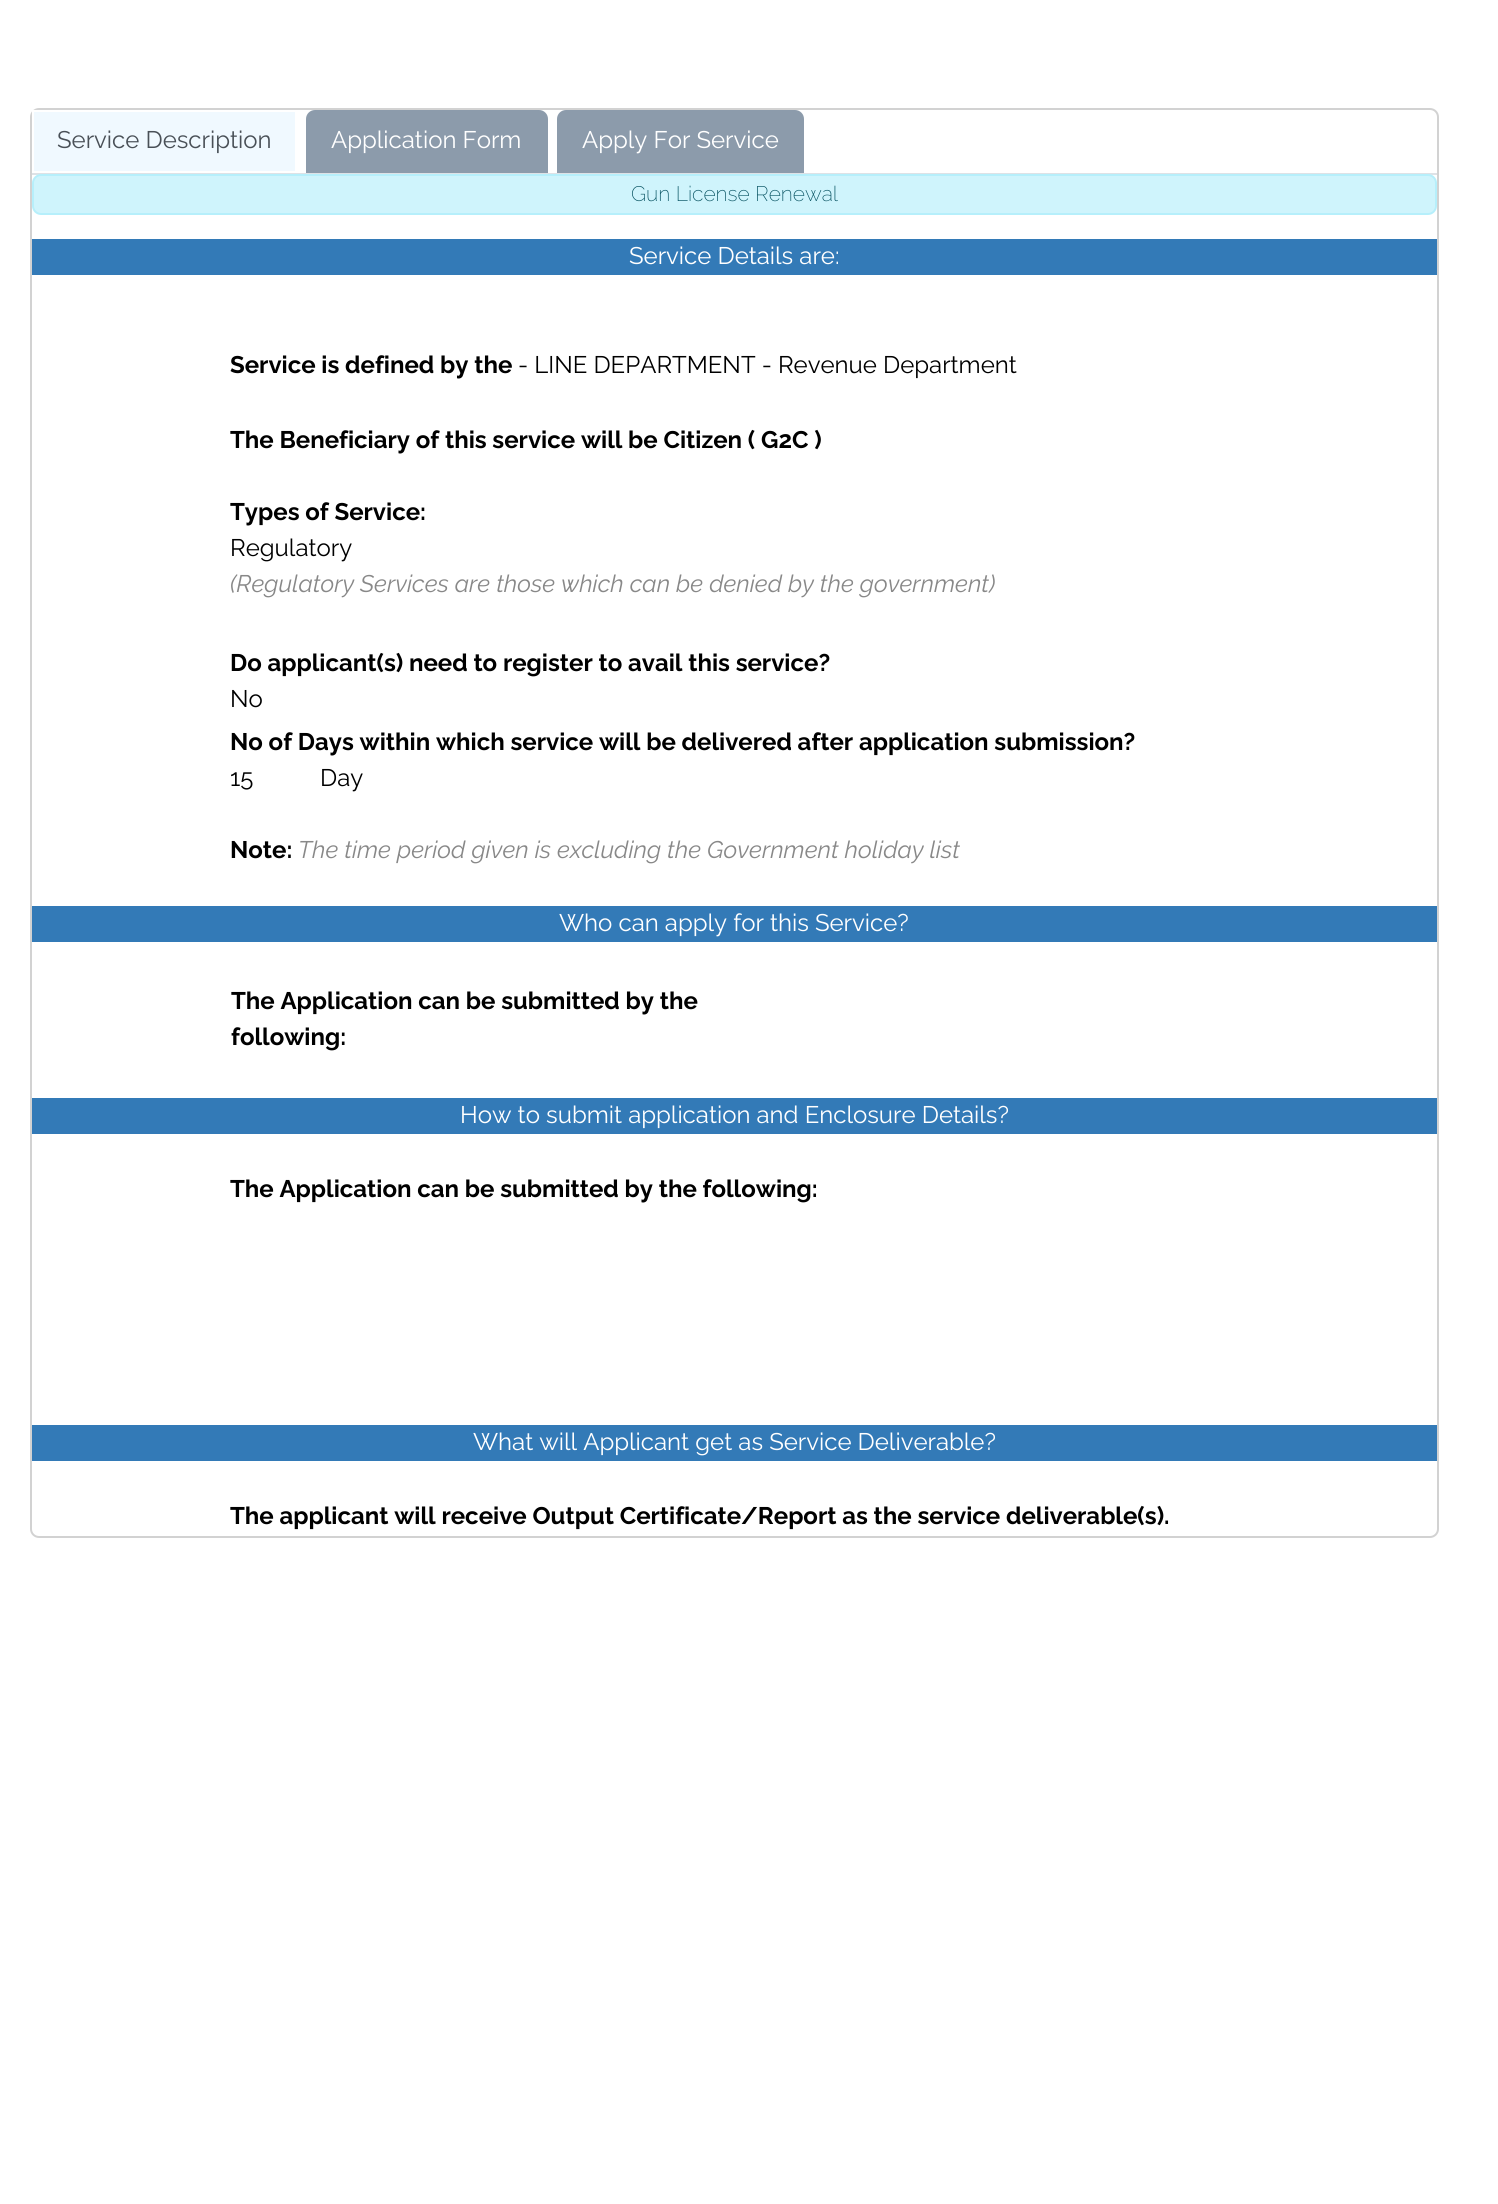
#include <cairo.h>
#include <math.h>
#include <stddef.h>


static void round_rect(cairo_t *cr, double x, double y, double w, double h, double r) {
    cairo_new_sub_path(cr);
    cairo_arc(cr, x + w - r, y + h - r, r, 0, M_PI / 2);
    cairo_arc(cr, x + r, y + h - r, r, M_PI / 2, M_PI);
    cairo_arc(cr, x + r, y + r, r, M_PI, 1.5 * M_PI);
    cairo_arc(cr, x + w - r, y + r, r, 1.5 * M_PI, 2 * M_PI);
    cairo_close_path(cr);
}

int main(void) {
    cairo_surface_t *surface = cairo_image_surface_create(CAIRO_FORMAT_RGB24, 1498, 2204);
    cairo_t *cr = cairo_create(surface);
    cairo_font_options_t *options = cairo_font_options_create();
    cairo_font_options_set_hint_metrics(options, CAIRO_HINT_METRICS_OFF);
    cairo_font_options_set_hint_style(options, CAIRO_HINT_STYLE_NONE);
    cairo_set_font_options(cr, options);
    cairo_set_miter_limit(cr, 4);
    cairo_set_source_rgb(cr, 1, 1, 1);
    cairo_paint(cr);
    round_rect(cr, 31, 109, 1407, 1428, 8);
    cairo_set_source_rgb(cr, 0.824, 0.824, 0.824);
    cairo_stroke(cr);
    cairo_set_source_rgb(cr, 0.871, 0.886, 0.902);
    cairo_rectangle(cr, 32, 173, 1405, 2);
    cairo_fill(cr);
    cairo_set_source_rgb(cr, 0.941, 0.973, 1);
    cairo_rectangle(cr, 33, 111, 263, 61);
    cairo_fill_preserve(cr);
    cairo_set_source_rgb(cr, 1, 1, 1);
    cairo_stroke(cr);
    cairo_select_font_face(cr, "Raleway", CAIRO_FONT_SLANT_NORMAL, CAIRO_FONT_WEIGHT_NORMAL);
    cairo_set_font_size(cr, 24);
    cairo_set_source_rgb(cr, 0.286, 0.314, 0.341);
    cairo_move_to(cr, 57, 148);
    cairo_show_text(cr, "Service Description");
    cairo_set_source_rgb(cr, 0.549, 0.608, 0.671);
    cairo_new_path(cr);
    cairo_move_to(cr, 315, 110);
    cairo_line_to(cr, 539, 110);
    cairo_curve_to(cr, 544, 110, 548, 114, 548, 119);
    cairo_line_to(cr, 548, 173);
    cairo_line_to(cr, 306, 173);
    cairo_line_to(cr, 306, 119);
    cairo_curve_to(cr, 306, 114, 310, 110, 315, 110);
    cairo_close_path(cr);
    cairo_fill(cr);
    cairo_set_source_rgb(cr, 1, 1, 1);
    cairo_move_to(cr, 331, 148);
    cairo_show_text(cr, "Application Form");
    cairo_set_source_rgb(cr, 0.549, 0.608, 0.671);
    cairo_new_path(cr);
    cairo_move_to(cr, 566, 110);
    cairo_line_to(cr, 795, 110);
    cairo_curve_to(cr, 800, 110, 804, 114, 804, 119);
    cairo_line_to(cr, 804, 173);
    cairo_line_to(cr, 557, 173);
    cairo_line_to(cr, 557, 119);
    cairo_curve_to(cr, 557, 114, 561, 110, 566, 110);
    cairo_close_path(cr);
    cairo_fill(cr);
    cairo_set_source_rgb(cr, 1, 1, 1);
    cairo_move_to(cr, 582, 148);
    cairo_show_text(cr, "Apply For Service");
    cairo_set_source_rgb(cr, 0.812, 0.957, 0.988);
    round_rect(cr, 33, 175, 1403, 39, 8);
    cairo_fill_preserve(cr);
    cairo_set_source_rgb(cr, 0.714, 0.937, 0.984);
    cairo_stroke(cr);
    cairo_select_font_face(cr, "Raleway ExtraLight", CAIRO_FONT_SLANT_NORMAL, CAIRO_FONT_WEIGHT_NORMAL);
    cairo_set_font_size(cr, 21);
    cairo_set_source_rgb(cr, 0.02, 0.318, 0.376);
    cairo_move_to(cr, 631, 201);
    cairo_show_text(cr, "Gun License Renewal");
    cairo_set_source_rgb(cr, 0.2, 0.478, 0.718);
    cairo_rectangle(cr, 32, 239, 1405, 36);
    cairo_fill(cr);
    cairo_select_font_face(cr, "Raleway", CAIRO_FONT_SLANT_NORMAL, CAIRO_FONT_WEIGHT_NORMAL);
    cairo_set_font_size(cr, 24);
    cairo_set_source_rgb(cr, 1, 1, 1);
    cairo_move_to(cr, 629, 264);
    cairo_show_text(cr, "Service Details are:");
    cairo_select_font_face(cr, "Raleway", CAIRO_FONT_SLANT_NORMAL, CAIRO_FONT_WEIGHT_BOLD);
    cairo_set_source_rgb(cr, 0, 0, 0);
    cairo_move_to(cr, 230, 373);
    cairo_show_text(cr, "Service is defined by the");
    cairo_select_font_face(cr, "Raleway", CAIRO_FONT_SLANT_NORMAL, CAIRO_FONT_WEIGHT_NORMAL);
    cairo_move_to(cr, 518, 373);
    cairo_show_text(cr, "- LINE DEPARTMENT - Revenue Department");
    cairo_select_font_face(cr, "Raleway", CAIRO_FONT_SLANT_NORMAL, CAIRO_FONT_WEIGHT_BOLD);
    cairo_move_to(cr, 230, 448);
    cairo_show_text(cr, "The Beneficiary of this service will be Citizen ( G2C )");
    cairo_move_to(cr, 230, 520);
    cairo_show_text(cr, "Types of Service:");
    cairo_select_font_face(cr, "Raleway", CAIRO_FONT_SLANT_NORMAL, CAIRO_FONT_WEIGHT_NORMAL);
    cairo_move_to(cr, 230, 556);
    cairo_show_text(cr, "Regulatory");
    cairo_select_font_face(cr, "Raleway", CAIRO_FONT_SLANT_ITALIC, CAIRO_FONT_WEIGHT_NORMAL);
    cairo_set_source_rgb(cr, 0.533, 0.533, 0.533);
    cairo_move_to(cr, 230, 592);
    cairo_show_text(cr, "(Regulatory Services are those which can be denied by the government)");
    cairo_select_font_face(cr, "Raleway", CAIRO_FONT_SLANT_NORMAL, CAIRO_FONT_WEIGHT_BOLD);
    cairo_set_source_rgb(cr, 0, 0, 0);
    cairo_move_to(cr, 230, 671);
    cairo_show_text(cr, "Do applicant(s) need to register to avail this service?");
    cairo_select_font_face(cr, "Raleway", CAIRO_FONT_SLANT_NORMAL, CAIRO_FONT_WEIGHT_NORMAL);
    cairo_move_to(cr, 230, 707);
    cairo_show_text(cr, "No");
    cairo_select_font_face(cr, "Raleway", CAIRO_FONT_SLANT_NORMAL, CAIRO_FONT_WEIGHT_BOLD);
    cairo_move_to(cr, 230, 750);
    cairo_show_text(cr, "No of Days within which service will be delivered after application submission?");
    cairo_select_font_face(cr, "Raleway", CAIRO_FONT_SLANT_NORMAL, CAIRO_FONT_WEIGHT_NORMAL);
    cairo_move_to(cr, 230, 786);
    cairo_show_text(cr, "15");
    cairo_move_to(cr, 320, 786);
    cairo_show_text(cr, "Day");
    cairo_select_font_face(cr, "Raleway", CAIRO_FONT_SLANT_NORMAL, CAIRO_FONT_WEIGHT_BOLD);
    cairo_move_to(cr, 230, 858);
    cairo_show_text(cr, "Note:");
    cairo_select_font_face(cr, "Raleway", CAIRO_FONT_SLANT_ITALIC, CAIRO_FONT_WEIGHT_NORMAL);
    cairo_set_source_rgb(cr, 0.533, 0.533, 0.533);
    cairo_move_to(cr, 298, 858);
    cairo_show_text(cr, "The time period given is excluding the Government holiday list");
    cairo_set_source_rgb(cr, 0.2, 0.478, 0.718);
    cairo_rectangle(cr, 32, 906, 1405, 36);
    cairo_fill(cr);
    cairo_select_font_face(cr, "Raleway", CAIRO_FONT_SLANT_NORMAL, CAIRO_FONT_WEIGHT_NORMAL);
    cairo_set_source_rgb(cr, 1, 1, 1);
    cairo_move_to(cr, 559, 931);
    cairo_show_text(cr, "Who can apply for this Service?");
    cairo_select_font_face(cr, "Raleway", CAIRO_FONT_SLANT_NORMAL, CAIRO_FONT_WEIGHT_BOLD);
    cairo_set_source_rgb(cr, 0, 0, 0);
    cairo_move_to(cr, 231, 1009);
    cairo_show_text(cr, "The Application can be submitted by the");
    cairo_move_to(cr, 231, 1045);
    cairo_show_text(cr, "following:");
    cairo_set_source_rgb(cr, 0.2, 0.478, 0.718);
    cairo_rectangle(cr, 32, 1098, 1405, 36);
    cairo_fill(cr);
    cairo_select_font_face(cr, "Raleway", CAIRO_FONT_SLANT_NORMAL, CAIRO_FONT_WEIGHT_NORMAL);
    cairo_set_source_rgb(cr, 1, 1, 1);
    cairo_move_to(cr, 460, 1123);
    cairo_show_text(cr, "How to submit application and Enclosure Details?");
    cairo_select_font_face(cr, "Raleway", CAIRO_FONT_SLANT_NORMAL, CAIRO_FONT_WEIGHT_BOLD);
    cairo_set_source_rgb(cr, 0, 0, 0);
    cairo_move_to(cr, 230, 1197);
    cairo_show_text(cr, "The Application can be submitted by the following:");
    cairo_set_source_rgb(cr, 0.2, 0.478, 0.718);
    cairo_rectangle(cr, 32, 1425, 1405, 36);
    cairo_fill(cr);
    cairo_select_font_face(cr, "Raleway", CAIRO_FONT_SLANT_NORMAL, CAIRO_FONT_WEIGHT_NORMAL);
    cairo_set_source_rgb(cr, 1, 1, 1);
    cairo_move_to(cr, 473, 1450);
    cairo_show_text(cr, "What will Applicant get as Service Deliverable?");
    cairo_select_font_face(cr, "Raleway", CAIRO_FONT_SLANT_NORMAL, CAIRO_FONT_WEIGHT_BOLD);
    cairo_set_source_rgb(cr, 0, 0, 0);
    cairo_move_to(cr, 230, 1524);
    cairo_show_text(cr, "The applicant will receive Output Certificate/Report as the service deliverable(s).");
    cairo_surface_write_to_png(surface, "page.png");
    cairo_font_options_destroy(options);
    cairo_destroy(cr);
    cairo_surface_destroy(surface);
    return 0;
}
